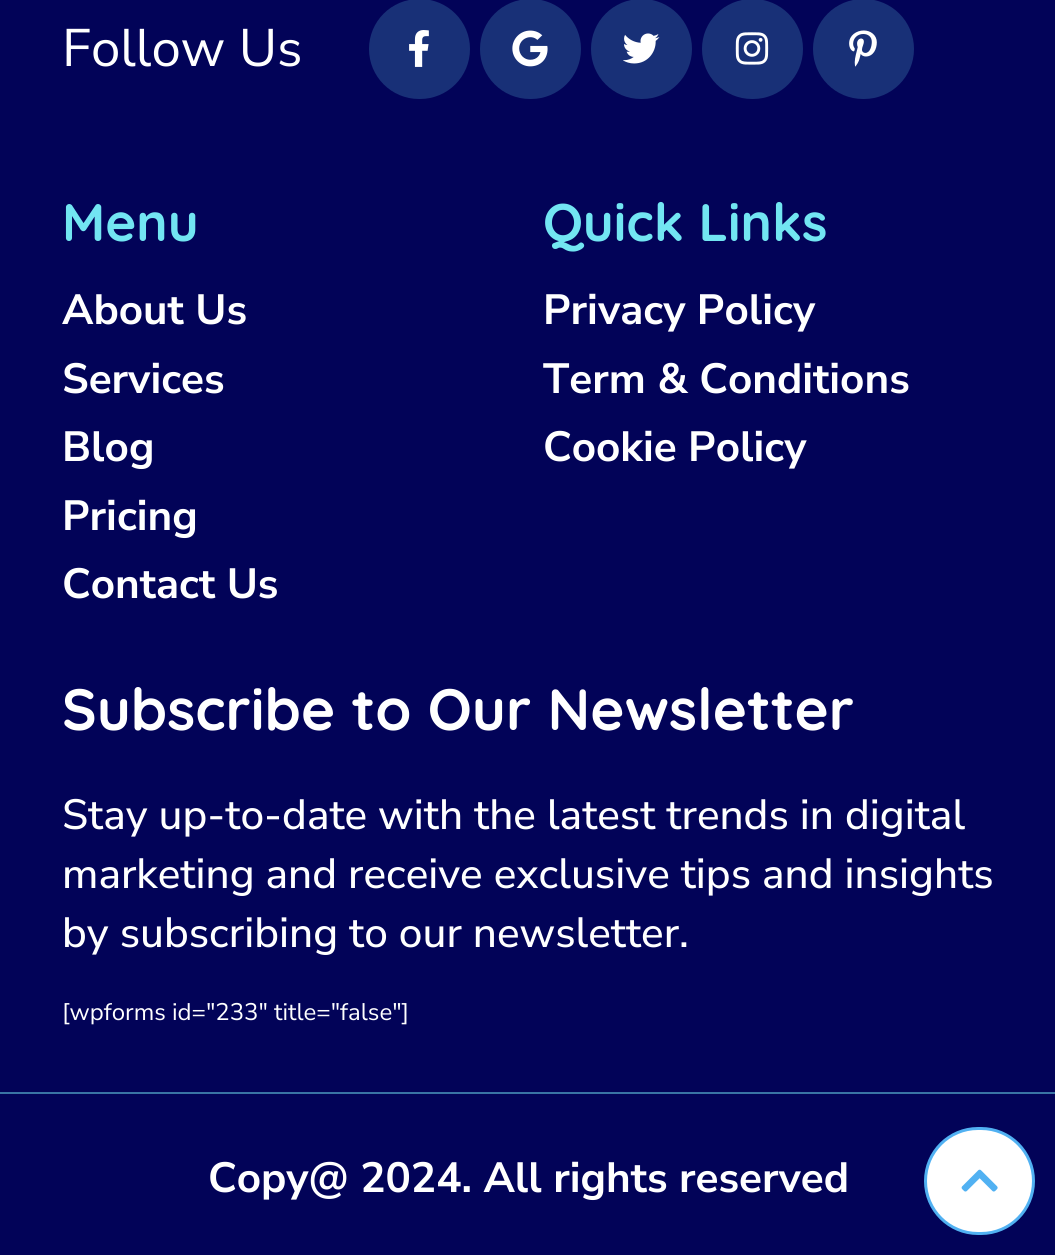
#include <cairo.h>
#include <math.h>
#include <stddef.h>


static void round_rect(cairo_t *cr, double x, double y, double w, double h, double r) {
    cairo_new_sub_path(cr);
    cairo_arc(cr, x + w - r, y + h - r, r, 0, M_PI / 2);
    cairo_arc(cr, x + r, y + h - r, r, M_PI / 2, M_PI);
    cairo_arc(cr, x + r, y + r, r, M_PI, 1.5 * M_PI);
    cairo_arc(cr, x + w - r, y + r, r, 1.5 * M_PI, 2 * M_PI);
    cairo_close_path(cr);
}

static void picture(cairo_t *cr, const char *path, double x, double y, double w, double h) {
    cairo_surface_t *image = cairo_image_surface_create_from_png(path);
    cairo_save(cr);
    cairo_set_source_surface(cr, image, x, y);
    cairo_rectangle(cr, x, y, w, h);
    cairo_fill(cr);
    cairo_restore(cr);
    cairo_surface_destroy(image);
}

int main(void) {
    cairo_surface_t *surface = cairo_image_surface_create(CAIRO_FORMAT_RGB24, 1055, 1255);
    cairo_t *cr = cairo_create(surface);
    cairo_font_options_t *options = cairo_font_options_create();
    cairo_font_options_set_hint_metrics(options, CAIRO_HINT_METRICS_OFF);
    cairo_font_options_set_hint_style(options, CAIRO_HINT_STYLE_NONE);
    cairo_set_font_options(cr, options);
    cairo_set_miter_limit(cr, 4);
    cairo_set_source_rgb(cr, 0.008, 0.012, 0.345);
    cairo_paint(cr);
    cairo_select_font_face(cr, "Nunito Sans", CAIRO_FONT_SLANT_NORMAL, CAIRO_FONT_WEIGHT_NORMAL);
    cairo_set_font_size(cr, 52.75);
    cairo_set_source_rgb(cr, 1, 1, 1);
    cairo_move_to(cr, 62, 66);
    cairo_show_text(cr, "Follow Us");
    cairo_set_source_rgb(cr, 0.094, 0.188, 0.467);
    round_rect(cr, 369, -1, 101, 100, 50);
    cairo_fill(cr);
    picture(cr, "img1.png", 409, 30, 20, 37);
    round_rect(cr, 480, -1, 101, 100, 50);
    cairo_fill(cr);
    picture(cr, "img2.png", 512, 30, 36, 37);
    round_rect(cr, 591, -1, 101, 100, 50);
    cairo_fill(cr);
    picture(cr, "img3.png", 623, 33, 37, 31);
    round_rect(cr, 702, -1, 101, 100, 50);
    cairo_fill(cr);
    picture(cr, "img4.png", 735, 32, 34, 33);
    round_rect(cr, 813, -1, 101, 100, 50);
    cairo_fill(cr);
    picture(cr, "img5.png", 849, 30, 28, 37);
    cairo_select_font_face(cr, "Quicksand", CAIRO_FONT_SLANT_NORMAL, CAIRO_FONT_WEIGHT_BOLD);
    cairo_set_source_rgb(cr, 0.447, 0.898, 0.949);
    cairo_move_to(cr, 62, 241);
    cairo_show_text(cr, "Menu");
    cairo_select_font_face(cr, "Nunito Sans", CAIRO_FONT_SLANT_NORMAL, CAIRO_FONT_WEIGHT_BOLD);
    cairo_set_font_size(cr, 42.25);
    cairo_set_source_rgb(cr, 1, 1, 1);
    cairo_move_to(cr, 62, 324);
    cairo_show_text(cr, "About Us");
    cairo_move_to(cr, 62, 393);
    cairo_show_text(cr, "Services");
    cairo_move_to(cr, 62, 461);
    cairo_show_text(cr, "Blog");
    cairo_move_to(cr, 62, 530);
    cairo_show_text(cr, "Pricing");
    cairo_move_to(cr, 62, 598);
    cairo_show_text(cr, "Contact Us");
    cairo_select_font_face(cr, "Quicksand", CAIRO_FONT_SLANT_NORMAL, CAIRO_FONT_WEIGHT_BOLD);
    cairo_set_font_size(cr, 52.75);
    cairo_set_source_rgb(cr, 0.447, 0.898, 0.949);
    cairo_move_to(cr, 543, 241);
    cairo_show_text(cr, "Quick Links");
    cairo_select_font_face(cr, "Nunito Sans", CAIRO_FONT_SLANT_NORMAL, CAIRO_FONT_WEIGHT_BOLD);
    cairo_set_font_size(cr, 42.25);
    cairo_set_source_rgb(cr, 1, 1, 1);
    cairo_move_to(cr, 543, 324);
    cairo_show_text(cr, "Privacy Policy");
    cairo_move_to(cr, 543, 393);
    cairo_show_text(cr, "Term & Conditions");
    cairo_move_to(cr, 543, 461);
    cairo_show_text(cr, "Cookie Policy");
    cairo_select_font_face(cr, "Quicksand", CAIRO_FONT_SLANT_NORMAL, CAIRO_FONT_WEIGHT_BOLD);
    cairo_set_font_size(cr, 58.1);
    cairo_move_to(cr, 62, 730);
    cairo_show_text(cr, "Subscribe to Our Newsletter");
    cairo_select_font_face(cr, "Nunito Sans Medium", CAIRO_FONT_SLANT_NORMAL, CAIRO_FONT_WEIGHT_NORMAL);
    cairo_set_font_size(cr, 42.25);
    cairo_move_to(cr, 62, 829);
    cairo_show_text(cr, "Stay up-to-date with the latest trends in digital");
    cairo_move_to(cr, 62, 888);
    cairo_show_text(cr, "marketing and receive exclusive tips and insights");
    cairo_move_to(cr, 62, 947);
    cairo_show_text(cr, "by subscribing to our newsletter.");
    cairo_select_font_face(cr, "Nunito Sans", CAIRO_FONT_SLANT_NORMAL, CAIRO_FONT_WEIGHT_NORMAL);
    cairo_set_font_size(cr, 24);
    cairo_move_to(cr, 62, 1020);
    cairo_show_text(cr, "[wpforms id=\"233\" title=\"false\"]");
    cairo_set_source_rgb(cr, 0.227, 0.455, 0.647);
    cairo_rectangle(cr, 0, 1092, 1055, 2);
    cairo_fill(cr);
    cairo_select_font_face(cr, "Nunito Sans", CAIRO_FONT_SLANT_NORMAL, CAIRO_FONT_WEIGHT_BOLD);
    cairo_set_font_size(cr, 42.25);
    cairo_set_source_rgb(cr, 1, 1, 1);
    cairo_move_to(cr, 208, 1192);
    cairo_show_text(cr, "Copy@ 2024. All rights reserved");
    round_rect(cr, 925.5, 1128.5, 108, 105, 52.5);
    cairo_fill_preserve(cr);
    cairo_set_source_rgb(cr, 0.318, 0.694, 0.949);
    cairo_set_line_width(cr, 3);
    cairo_stroke(cr);
    picture(cr, "img6.png", 961, 1169, 37, 23);
    cairo_surface_write_to_png(surface, "page.png");
    cairo_font_options_destroy(options);
    cairo_destroy(cr);
    cairo_surface_destroy(surface);
    return 0;
}
